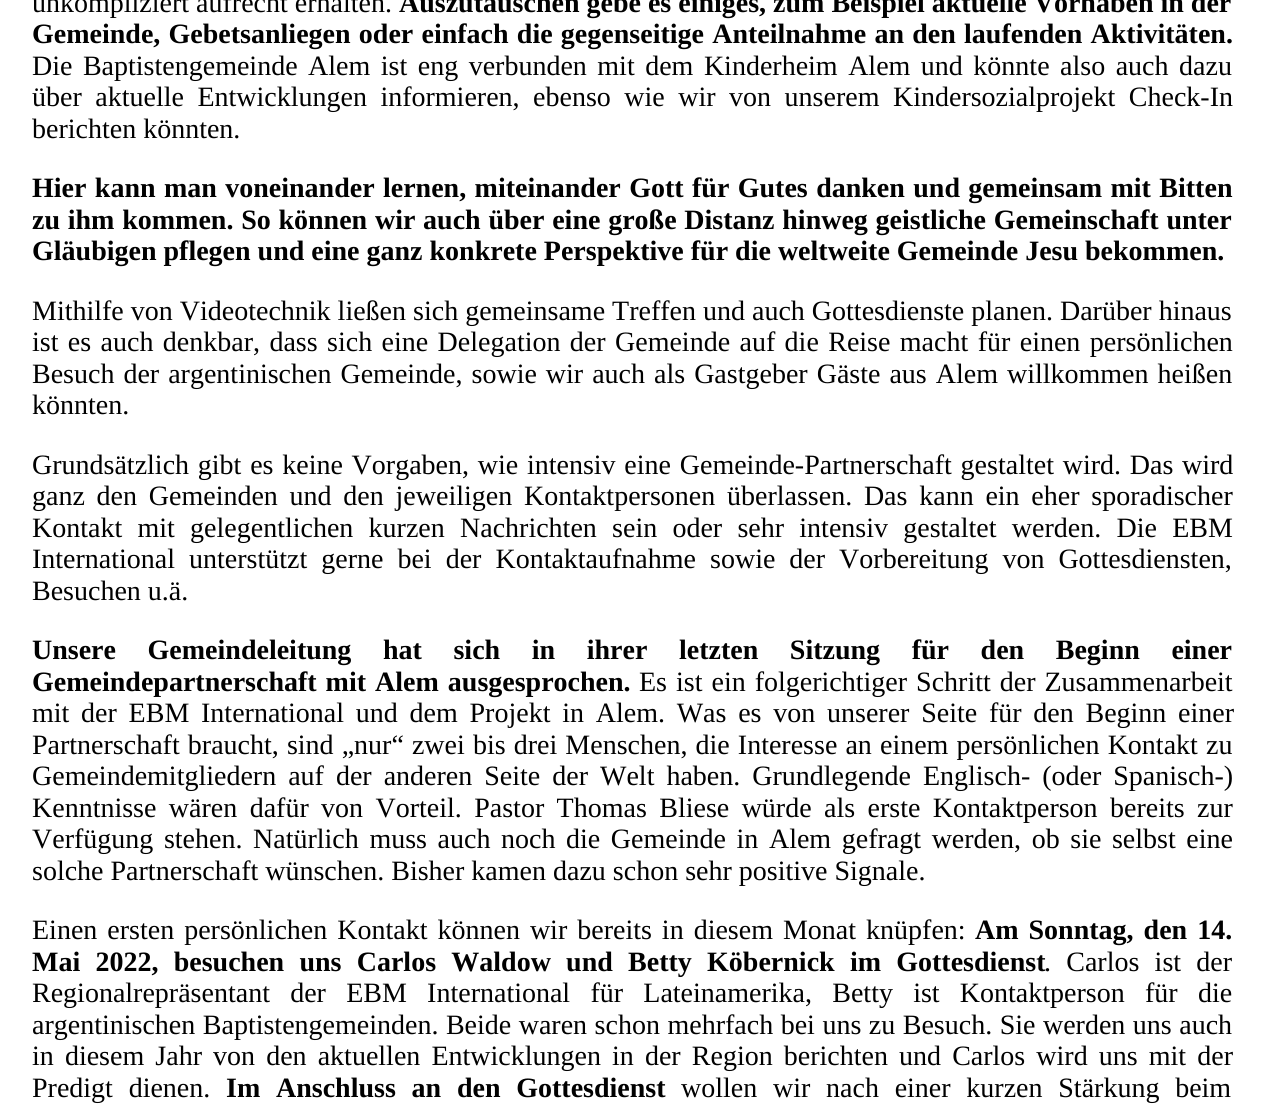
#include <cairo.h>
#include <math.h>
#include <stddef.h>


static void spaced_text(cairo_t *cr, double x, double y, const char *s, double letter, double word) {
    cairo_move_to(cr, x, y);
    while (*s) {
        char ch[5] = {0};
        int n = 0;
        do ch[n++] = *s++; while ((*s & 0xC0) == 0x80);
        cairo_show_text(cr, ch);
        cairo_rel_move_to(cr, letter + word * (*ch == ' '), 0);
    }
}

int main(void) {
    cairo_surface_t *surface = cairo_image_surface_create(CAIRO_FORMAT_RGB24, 1263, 1115);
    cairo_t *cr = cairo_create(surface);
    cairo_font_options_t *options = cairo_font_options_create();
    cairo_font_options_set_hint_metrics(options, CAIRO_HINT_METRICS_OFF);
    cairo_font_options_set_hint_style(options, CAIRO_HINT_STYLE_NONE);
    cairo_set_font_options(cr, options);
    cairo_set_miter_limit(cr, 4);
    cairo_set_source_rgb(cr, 1, 1, 1);
    cairo_paint(cr);
    cairo_select_font_face(cr, "Liberation Serif", CAIRO_FONT_SLANT_NORMAL, CAIRO_FONT_WEIGHT_NORMAL);
    cairo_set_font_size(cr, 28);
    cairo_set_source_rgb(cr, 0, 0, 0);
    cairo_move_to(cr, 32, 12);
    cairo_show_text(cr, "unkompliziert aufrecht erhalten.");
    cairo_select_font_face(cr, "Liberation Serif", CAIRO_FONT_SLANT_NORMAL, CAIRO_FONT_WEIGHT_BOLD);
    cairo_move_to(cr, 399, 12);
    cairo_show_text(cr, "Auszutauschen gebe es einiges, zum Beispiel aktuelle Vorhaben in der");
    spaced_text(cr, 32, 43, "Gemeinde, Gebetsanliegen oder einfach die gegenseitige Anteilnahme an den laufenden Aktivitäten.", 0, 1.25);
    cairo_select_font_face(cr, "Liberation Serif", CAIRO_FONT_SLANT_NORMAL, CAIRO_FONT_WEIGHT_NORMAL);
    spaced_text(cr, 32, 75, "Die Baptistengemeinde Alem ist eng verbunden mit dem Kinderheim Alem und könnte also auch dazu", 0, 3.5);
    spaced_text(cr, 32, 106, "über aktuelle Entwicklungen informieren, ebenso wie wir von unserem Kindersozialprojekt Check-In", 0, 6.5);
    cairo_move_to(cr, 32, 138);
    cairo_show_text(cr, "berichten könnten.");
    cairo_select_font_face(cr, "Liberation Serif", CAIRO_FONT_SLANT_NORMAL, CAIRO_FONT_WEIGHT_BOLD);
    spaced_text(cr, 32, 197, "Hier kann man voneinander lernen, miteinander Gott für Gutes danken und gemeinsam mit Bitten", 0, 1.4);
    spaced_text(cr, 32, 229, "zu ihm kommen. So können wir auch über eine große Distanz hinweg geistliche Gemeinschaft unter", 0, 0.75);
    cairo_move_to(cr, 32, 260);
    cairo_show_text(cr, "Gläubigen pflegen und eine ganz konkrete Perspektive für die weltweite Gemeinde Jesu bekommen.");
    cairo_select_font_face(cr, "Liberation Serif", CAIRO_FONT_SLANT_NORMAL, CAIRO_FONT_WEIGHT_NORMAL);
    cairo_move_to(cr, 32, 320);
    cairo_show_text(cr, "Mithilfe von Videotechnik ließen sich gemeinsame Treffen und auch Gottesdienste planen. Darüber hinaus");
    spaced_text(cr, 32, 351, "ist es auch denkbar, dass sich eine Delegation der Gemeinde auf die Reise macht für einen persönlichen", 0, 2.4);
    spaced_text(cr, 32, 383, "Besuch der argentinischen Gemeinde, sowie wir auch als Gastgeber Gäste aus Alem willkommen heißen", 0, 2);
    cairo_move_to(cr, 32, 414);
    cairo_show_text(cr, "könnten.");
    spaced_text(cr, 32, 474, "Grundsätzlich gibt es keine Vorgaben, wie intensiv eine Gemeinde-Partnerschaft gestaltet wird. Das wird", 0, 1.75);
    spaced_text(cr, 32, 505, "ganz den Gemeinden und den jeweiligen Kontaktpersonen überlassen. Das kann ein eher sporadischer", 0, 4.75);
    spaced_text(cr, 32, 537, "Kontakt mit gelegentlichen kurzen Nachrichten sein oder sehr intensiv gestaltet werden. Die EBM", 0, 8.25);
    spaced_text(cr, 32, 568, "International unterstützt gerne bei der Kontaktaufnahme sowie der Vorbereitung von Gottesdiensten,", 0, 7);
    cairo_move_to(cr, 32, 600);
    cairo_show_text(cr, "Besuchen u.ä.");
    cairo_select_font_face(cr, "Liberation Serif", CAIRO_FONT_SLANT_NORMAL, CAIRO_FONT_WEIGHT_BOLD);
    spaced_text(cr, 32, 659, "Unsere Gemeindeleitung hat sich in ihrer letzten Sitzung für den Beginn einer", 0, 24.6);
    spaced_text(cr, 32, 691, "Gemeindepartnerschaft mit Alem ausgesprochen.", 0, 2);
    cairo_select_font_face(cr, "Liberation Serif", CAIRO_FONT_SLANT_NORMAL, CAIRO_FONT_WEIGHT_NORMAL);
    spaced_text(cr, 639, 691, "Es ist ein folgerichtiger Schritt der Zusammenarbeit", 0, 2);
    spaced_text(cr, 32, 722, "mit der EBM International und dem Projekt in Alem. Was es von unserer Seite für den Beginn einer", 0, 4.75);
    spaced_text(cr, 32, 754, "Partnerschaft braucht, sind „nur“ zwei bis drei Menschen, die Interesse an einem persönlichen Kontakt zu", 0, 1.1);
    spaced_text(cr, 32, 785, "Gemeindemitgliedern auf der anderen Seite der Welt haben. Grundlegende Englisch- (oder Spanisch-)", 0, 5);
    spaced_text(cr, 32, 817, "Kenntnisse wären dafür von Vorteil. Pastor Thomas Bliese würde als erste Kontaktperson bereits zur", 0, 5.4);
    spaced_text(cr, 32, 848, "Verfügung stehen. Natürlich muss auch noch die Gemeinde in Alem gefragt werden, ob sie selbst eine", 0, 3.6);
    cairo_move_to(cr, 32, 880);
    cairo_show_text(cr, "solche Partnerschaft wünschen. Bisher kamen dazu schon sehr positive Signale.");
    spaced_text(cr, 32, 939, "Einen ersten persönlichen Kontakt können wir bereits in diesem Monat knüpfen:", 0, 3);
    cairo_select_font_face(cr, "Liberation Serif", CAIRO_FONT_SLANT_NORMAL, CAIRO_FONT_WEIGHT_BOLD);
    spaced_text(cr, 975, 939, "Am Sonntag, den 14.", 0, 3);
    spaced_text(cr, 32, 971, "Mai 2022, besuchen uns Carlos Waldow und Betty Köbernick im Gottesdienst", 0, 8.25);
    cairo_select_font_face(cr, "Liberation Serif", CAIRO_FONT_SLANT_NORMAL, CAIRO_FONT_WEIGHT_NORMAL);
    spaced_text(cr, 1044, 971, ". Carlos ist der", 0, 8.25);
    spaced_text(cr, 32, 1002, "Regionalrepräsentant der EBM International für Lateinamerika, Betty ist Kontaktperson für die", 0, 13.25);
    spaced_text(cr, 32, 1034, "argentinischen Baptistengemeinden. Beide waren schon mehrfach bei uns zu Besuch. Sie werden uns auch", 0, 0.5);
    spaced_text(cr, 32, 1065, "in diesem Jahr von den aktuellen Entwicklungen in der Region berichten und Carlos wird uns mit der", 0, 4.1);
    spaced_text(cr, 32, 1097, "Predigt dienen.", 0, 8.75);
    cairo_select_font_face(cr, "Liberation Serif", CAIRO_FONT_SLANT_NORMAL, CAIRO_FONT_WEIGHT_BOLD);
    spaced_text(cr, 226, 1097, "Im Anschluss an den Gottesdienst", 0, 8.75);
    cairo_select_font_face(cr, "Liberation Serif", CAIRO_FONT_SLANT_NORMAL, CAIRO_FONT_WEIGHT_NORMAL);
    spaced_text(cr, 681, 1097, "wollen wir nach einer kurzen Stärkung beim", 0, 8.75);
    cairo_surface_write_to_png(surface, "page.png");
    cairo_font_options_destroy(options);
    cairo_destroy(cr);
    cairo_surface_destroy(surface);
    return 0;
}
